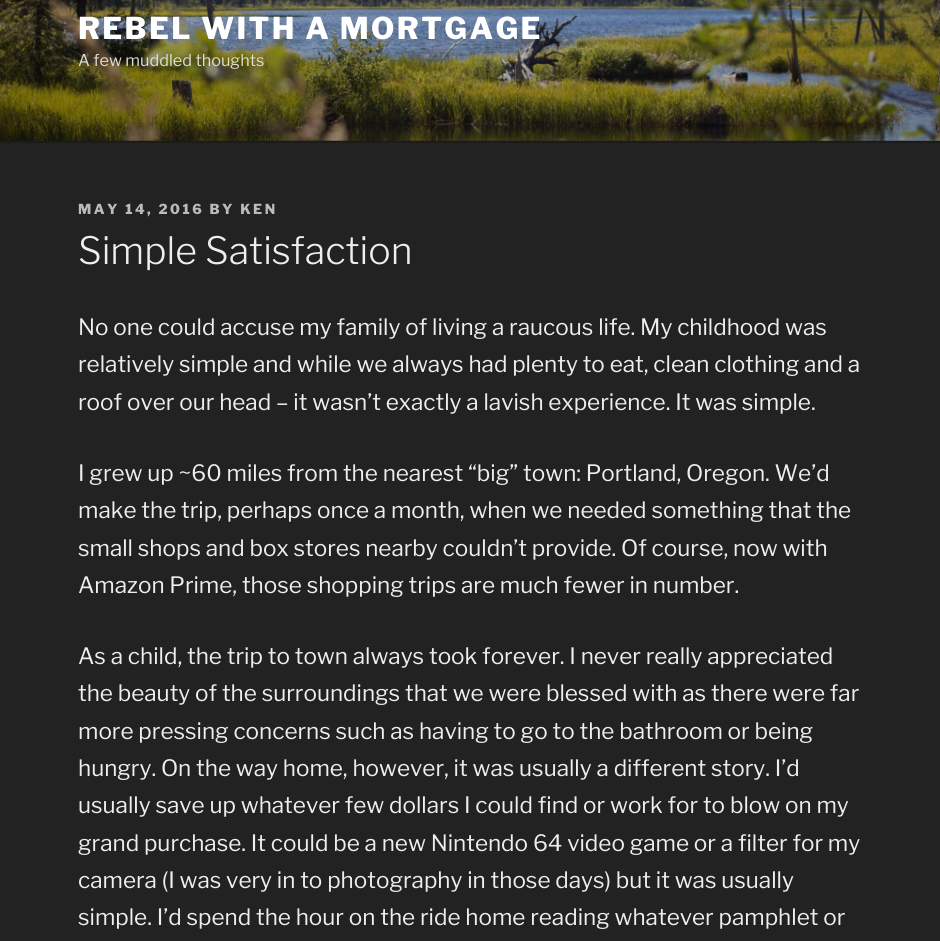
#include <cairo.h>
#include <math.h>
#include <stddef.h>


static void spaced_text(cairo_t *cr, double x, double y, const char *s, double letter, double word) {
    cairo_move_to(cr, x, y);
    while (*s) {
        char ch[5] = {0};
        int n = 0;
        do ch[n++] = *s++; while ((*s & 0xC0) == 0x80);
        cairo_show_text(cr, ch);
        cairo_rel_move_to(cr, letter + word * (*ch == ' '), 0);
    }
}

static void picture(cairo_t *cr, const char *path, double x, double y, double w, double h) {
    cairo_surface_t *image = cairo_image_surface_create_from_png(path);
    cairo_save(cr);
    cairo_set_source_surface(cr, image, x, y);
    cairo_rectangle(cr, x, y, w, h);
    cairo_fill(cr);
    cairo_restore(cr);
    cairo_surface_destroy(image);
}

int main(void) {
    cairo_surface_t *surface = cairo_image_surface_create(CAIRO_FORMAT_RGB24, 940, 941);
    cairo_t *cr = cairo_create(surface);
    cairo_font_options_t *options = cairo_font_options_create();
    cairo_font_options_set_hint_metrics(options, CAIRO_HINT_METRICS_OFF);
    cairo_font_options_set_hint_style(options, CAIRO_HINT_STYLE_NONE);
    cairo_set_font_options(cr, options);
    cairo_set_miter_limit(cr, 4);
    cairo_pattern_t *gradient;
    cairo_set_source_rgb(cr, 0.133, 0.133, 0.133);
    cairo_paint(cr);
    cairo_set_source_rgb(cr, 0.149, 0.149, 0.149);
    cairo_rectangle(cr, 0, 140, 940, 3);
    cairo_fill(cr);
    picture(cr, "img1.png", 0, 0, 940, 141);
    gradient = cairo_pattern_create_linear(470, -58, 470, 143);
    cairo_pattern_add_color_stop_rgba(gradient, 0, 0, 0, 0, 0);
    cairo_pattern_add_color_stop_rgba(gradient, 0.75, 0, 0, 0, 0.3);
    cairo_pattern_add_color_stop_rgba(gradient, 1, 0, 0, 0, 0.3);
    cairo_set_source(cr, gradient);
    cairo_pattern_destroy(gradient);
    cairo_rectangle(cr, 0, 0, 940, 143);
    cairo_fill(cr);
    cairo_select_font_face(cr, "Libre Franklin ExtraBold", CAIRO_FONT_SLANT_NORMAL, CAIRO_FONT_WEIGHT_NORMAL);
    cairo_set_font_size(cr, 30);
    cairo_set_source_rgb(cr, 1, 1, 1);
    spaced_text(cr, 78, 39, "REBEL WITH A MORTGAGE", 2.4, 0);
    cairo_select_font_face(cr, "Libre Franklin", CAIRO_FONT_SLANT_NORMAL, CAIRO_FONT_WEIGHT_NORMAL);
    cairo_set_font_size(cr, 16.25);
    cairo_set_source_rgb(cr, 0.871, 0.867, 0.827);
    cairo_move_to(cr, 78, 66);
    cairo_show_text(cr, "A few muddled thoughts");
    cairo_select_font_face(cr, "Libre Franklin ExtraBold", CAIRO_FONT_SLANT_NORMAL, CAIRO_FONT_WEIGHT_NORMAL);
    cairo_set_font_size(cr, 13.75);
    cairo_set_source_rgb(cr, 0.733, 0.733, 0.733);
    spaced_text(cr, 78, 214, "MAY 14, 2016 BY KEN", 2.5, 0);
    cairo_select_font_face(cr, "Libre Franklin Light", CAIRO_FONT_SLANT_NORMAL, CAIRO_FONT_WEIGHT_NORMAL);
    cairo_set_font_size(cr, 37.5);
    cairo_set_source_rgb(cr, 0.933, 0.933, 0.933);
    cairo_move_to(cr, 78, 264);
    cairo_show_text(cr, "Simple Satisfaction");
    cairo_select_font_face(cr, "Libre Franklin", CAIRO_FONT_SLANT_NORMAL, CAIRO_FONT_WEIGHT_NORMAL);
    cairo_set_font_size(cr, 22.5);
    cairo_move_to(cr, 78, 335);
    cairo_show_text(cr, "No one could accuse my family of living a raucous life. My childhood was");
    cairo_move_to(cr, 78, 372);
    cairo_show_text(cr, "relatively simple and while we always had plenty to eat, clean clothing and a");
    cairo_move_to(cr, 78, 410);
    cairo_show_text(cr, "roof over our head – it wasn’t exactly a lavish experience. It was simple.");
    cairo_move_to(cr, 78, 481);
    cairo_show_text(cr, "I grew up ~60 miles from the nearest “big” town: Portland, Oregon. We’d");
    cairo_move_to(cr, 78, 518);
    cairo_show_text(cr, "make the trip, perhaps once a month, when we needed something that the");
    cairo_move_to(cr, 78, 556);
    cairo_show_text(cr, "small shops and box stores nearby couldn’t provide. Of course, now with");
    cairo_move_to(cr, 78, 593);
    cairo_show_text(cr, "Amazon Prime, those shopping trips are much fewer in number.");
    cairo_move_to(cr, 78, 664);
    cairo_show_text(cr, "As a child, the trip to town always took forever. I never really appreciated");
    cairo_move_to(cr, 78, 701);
    cairo_show_text(cr, "the beauty of the surroundings that we were blessed with as there were far");
    cairo_move_to(cr, 78, 739);
    cairo_show_text(cr, "more pressing concerns such as having to go to the bathroom or being");
    cairo_move_to(cr, 78, 776);
    cairo_show_text(cr, "hungry. On the way home, however, it was usually a different story. I’d");
    cairo_move_to(cr, 78, 813);
    cairo_show_text(cr, "usually save up whatever few dollars I could find or work for to blow on my");
    cairo_move_to(cr, 78, 851);
    cairo_show_text(cr, "grand purchase. It could be a new Nintendo 64 video game or a filter for my");
    cairo_move_to(cr, 78, 888);
    cairo_show_text(cr, "camera (I was very in to photography in those days) but it was usually");
    cairo_move_to(cr, 78, 925);
    cairo_show_text(cr, "simple. I’d spend the hour on the ride home reading whatever pamphlet or");
    cairo_surface_write_to_png(surface, "page.png");
    cairo_font_options_destroy(options);
    cairo_destroy(cr);
    cairo_surface_destroy(surface);
    return 0;
}
